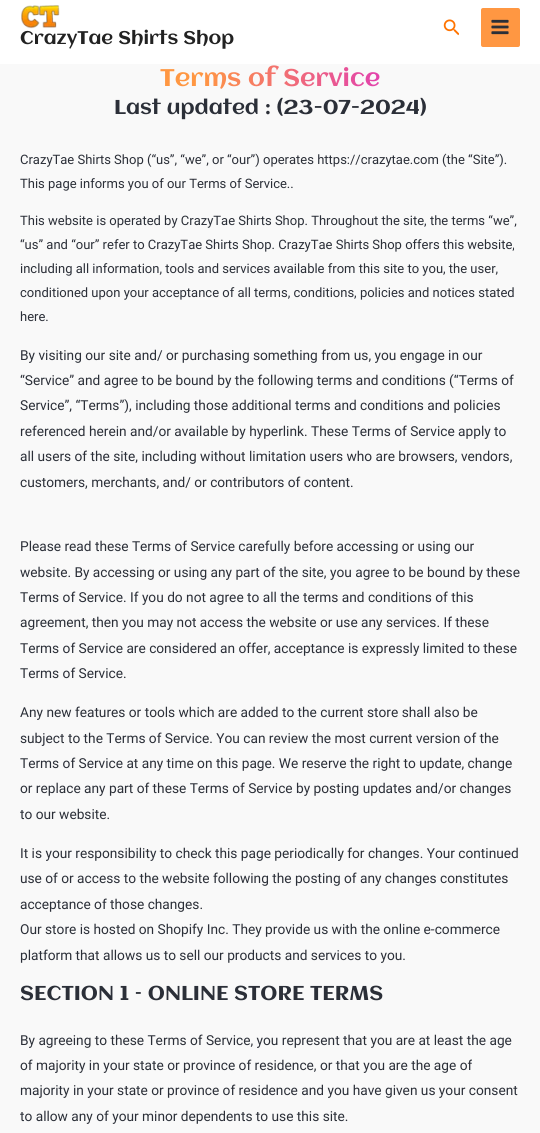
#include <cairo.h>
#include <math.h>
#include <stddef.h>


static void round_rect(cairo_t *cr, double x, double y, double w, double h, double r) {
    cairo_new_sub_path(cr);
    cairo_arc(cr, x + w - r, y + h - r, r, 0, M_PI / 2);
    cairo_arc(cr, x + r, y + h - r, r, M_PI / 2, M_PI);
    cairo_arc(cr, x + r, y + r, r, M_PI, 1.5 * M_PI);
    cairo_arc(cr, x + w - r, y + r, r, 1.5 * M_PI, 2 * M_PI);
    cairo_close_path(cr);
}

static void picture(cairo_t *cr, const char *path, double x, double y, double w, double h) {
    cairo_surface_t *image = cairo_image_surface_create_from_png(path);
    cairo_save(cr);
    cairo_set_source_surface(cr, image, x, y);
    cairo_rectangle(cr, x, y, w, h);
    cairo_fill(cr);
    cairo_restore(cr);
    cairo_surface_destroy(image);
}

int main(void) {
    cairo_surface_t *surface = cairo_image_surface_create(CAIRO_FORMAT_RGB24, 540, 1133);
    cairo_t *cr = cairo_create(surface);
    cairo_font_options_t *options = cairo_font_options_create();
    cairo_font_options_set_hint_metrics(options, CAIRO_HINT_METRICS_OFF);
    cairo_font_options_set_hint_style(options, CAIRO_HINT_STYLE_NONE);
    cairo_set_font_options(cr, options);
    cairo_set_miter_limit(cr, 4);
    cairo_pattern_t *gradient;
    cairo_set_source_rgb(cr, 0.976, 0.976, 0.976);
    cairo_paint(cr);
    cairo_set_source_rgb(cr, 1, 1, 1);
    cairo_rectangle(cr, 0, 0, 540, 64);
    cairo_fill(cr);
    picture(cr, "img1.png", 21, 5, 39, 24);
    cairo_select_font_face(cr, "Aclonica", CAIRO_FONT_SLANT_NORMAL, CAIRO_FONT_WEIGHT_NORMAL);
    cairo_set_font_size(cr, 18.25);
    cairo_set_source_rgb(cr, 0.133, 0.133, 0.133);
    cairo_move_to(cr, 20, 44);
    cairo_show_text(cr, "CrazyTae Shirts Shop");
    picture(cr, "img2.png", 443, 19, 16, 17);
    cairo_set_source_rgb(cr, 1, 0.592, 0.259);
    round_rect(cr, 481, 8, 39, 39, 2);
    cairo_fill(cr);
    picture(cr, "img3.png", 491, 19, 18, 16);
    cairo_set_font_size(cr, 24);
    gradient = cairo_pattern_create_linear(20, 80, 520, 80);
    cairo_pattern_add_color_stop_rgba(gradient, 0.36, 1, 0.592, 0.259, 1);
    cairo_pattern_add_color_stop_rgba(gradient, 1, 0.8, 0, 1, 1);
    cairo_set_source(cr, gradient);
    cairo_pattern_destroy(gradient);
    cairo_move_to(cr, 160, 86);
    cairo_show_text(cr, "Terms of Service");
    cairo_set_font_size(cr, 20);
    cairo_set_source_rgb(cr, 0.169, 0.184, 0.22);
    cairo_move_to(cr, 114, 114);
    cairo_show_text(cr, "Last updated : (23-07-2024)");
    cairo_select_font_face(cr, "Roboto", CAIRO_FONT_SLANT_NORMAL, CAIRO_FONT_WEIGHT_NORMAL);
    cairo_set_font_size(cr, 13);
    cairo_move_to(cr, 20, 164);
    cairo_show_text(cr, "CrazyTae Shirts Shop (“us”, “we”, or “our”) operates https://crazytae.com (the “Site”).");
    cairo_move_to(cr, 20, 188);
    cairo_show_text(cr, "This page informs you of our Terms of Service..");
    cairo_move_to(cr, 20, 225);
    cairo_show_text(cr, "This website is operated by CrazyTae Shirts Shop. Throughout the site, the terms “we”,");
    cairo_move_to(cr, 20, 249);
    cairo_show_text(cr, "“us” and “our” refer to CrazyTae Shirts Shop. CrazyTae Shirts Shop offers this website,");
    cairo_move_to(cr, 20, 273);
    cairo_show_text(cr, "including all information, tools and services available from this site to you, the user,");
    cairo_move_to(cr, 20, 297);
    cairo_show_text(cr, "conditioned upon your acceptance of all terms, conditions, policies and notices stated");
    cairo_move_to(cr, 20, 321);
    cairo_show_text(cr, "here.");
    cairo_set_font_size(cr, 13.7);
    cairo_move_to(cr, 20, 360);
    cairo_show_text(cr, "By visiting our site and/ or purchasing something from us, you engage in our");
    cairo_move_to(cr, 20, 385);
    cairo_show_text(cr, "“Service” and agree to be bound by the following terms and conditions (“Terms of");
    cairo_move_to(cr, 20, 410);
    cairo_show_text(cr, "Service”, “Terms”), including those additional terms and conditions and policies");
    cairo_move_to(cr, 20, 436);
    cairo_show_text(cr, "referenced herein and/or available by hyperlink. These Terms of Service apply to");
    cairo_move_to(cr, 20, 461);
    cairo_show_text(cr, "all users of the site, including without limitation users who are browsers, vendors,");
    cairo_move_to(cr, 20, 487);
    cairo_show_text(cr, "customers, merchants, and/ or contributors of content.");
    cairo_move_to(cr, 20, 551);
    cairo_show_text(cr, "Please read these Terms of Service carefully before accessing or using our");
    cairo_move_to(cr, 20, 577);
    cairo_show_text(cr, "website. By accessing or using any part of the site, you agree to be bound by these");
    cairo_move_to(cr, 20, 602);
    cairo_show_text(cr, "Terms of Service. If you do not agree to all the terms and conditions of this");
    cairo_move_to(cr, 20, 627);
    cairo_show_text(cr, "agreement, then you may not access the website or use any services. If these");
    cairo_move_to(cr, 20, 653);
    cairo_show_text(cr, "Terms of Service are considered an offer, acceptance is expressly limited to these");
    cairo_move_to(cr, 20, 678);
    cairo_show_text(cr, "Terms of Service.");
    cairo_move_to(cr, 20, 717);
    cairo_show_text(cr, "Any new features or tools which are added to the current store shall also be");
    cairo_move_to(cr, 20, 743);
    cairo_show_text(cr, "subject to the Terms of Service. You can review the most current version of the");
    cairo_move_to(cr, 20, 768);
    cairo_show_text(cr, "Terms of Service at any time on this page. We reserve the right to update, change");
    cairo_move_to(cr, 20, 793);
    cairo_show_text(cr, "or replace any part of these Terms of Service by posting updates and/or changes");
    cairo_move_to(cr, 20, 819);
    cairo_show_text(cr, "to our website.");
    cairo_move_to(cr, 20, 858);
    cairo_show_text(cr, "It is your responsibility to check this page periodically for changes. Your continued");
    cairo_move_to(cr, 20, 883);
    cairo_show_text(cr, "use of or access to the website following the posting of any changes constitutes");
    cairo_move_to(cr, 20, 909);
    cairo_show_text(cr, "acceptance of those changes.");
    cairo_move_to(cr, 20, 934);
    cairo_show_text(cr, "Our store is hosted on Shopify Inc. They provide us with the online e-commerce");
    cairo_move_to(cr, 20, 960);
    cairo_show_text(cr, "platform that allows us to sell our products and services to you.");
    cairo_select_font_face(cr, "Aclonica", CAIRO_FONT_SLANT_NORMAL, CAIRO_FONT_WEIGHT_NORMAL);
    cairo_set_font_size(cr, 20);
    cairo_move_to(cr, 20, 1000);
    cairo_show_text(cr, "SECTION 1 – ONLINE STORE TERMS");
    cairo_select_font_face(cr, "Roboto", CAIRO_FONT_SLANT_NORMAL, CAIRO_FONT_WEIGHT_NORMAL);
    cairo_set_font_size(cr, 13.7);
    cairo_move_to(cr, 20, 1045);
    cairo_show_text(cr, "By agreeing to these Terms of Service, you represent that you are at least the age");
    cairo_move_to(cr, 20, 1070);
    cairo_show_text(cr, "of majority in your state or province of residence, or that you are the age of");
    cairo_move_to(cr, 20, 1095);
    cairo_show_text(cr, "majority in your state or province of residence and you have given us your consent");
    cairo_move_to(cr, 20, 1121);
    cairo_show_text(cr, "to allow any of your minor dependents to use this site.");
    cairo_surface_write_to_png(surface, "page.png");
    cairo_font_options_destroy(options);
    cairo_destroy(cr);
    cairo_surface_destroy(surface);
    return 0;
}
